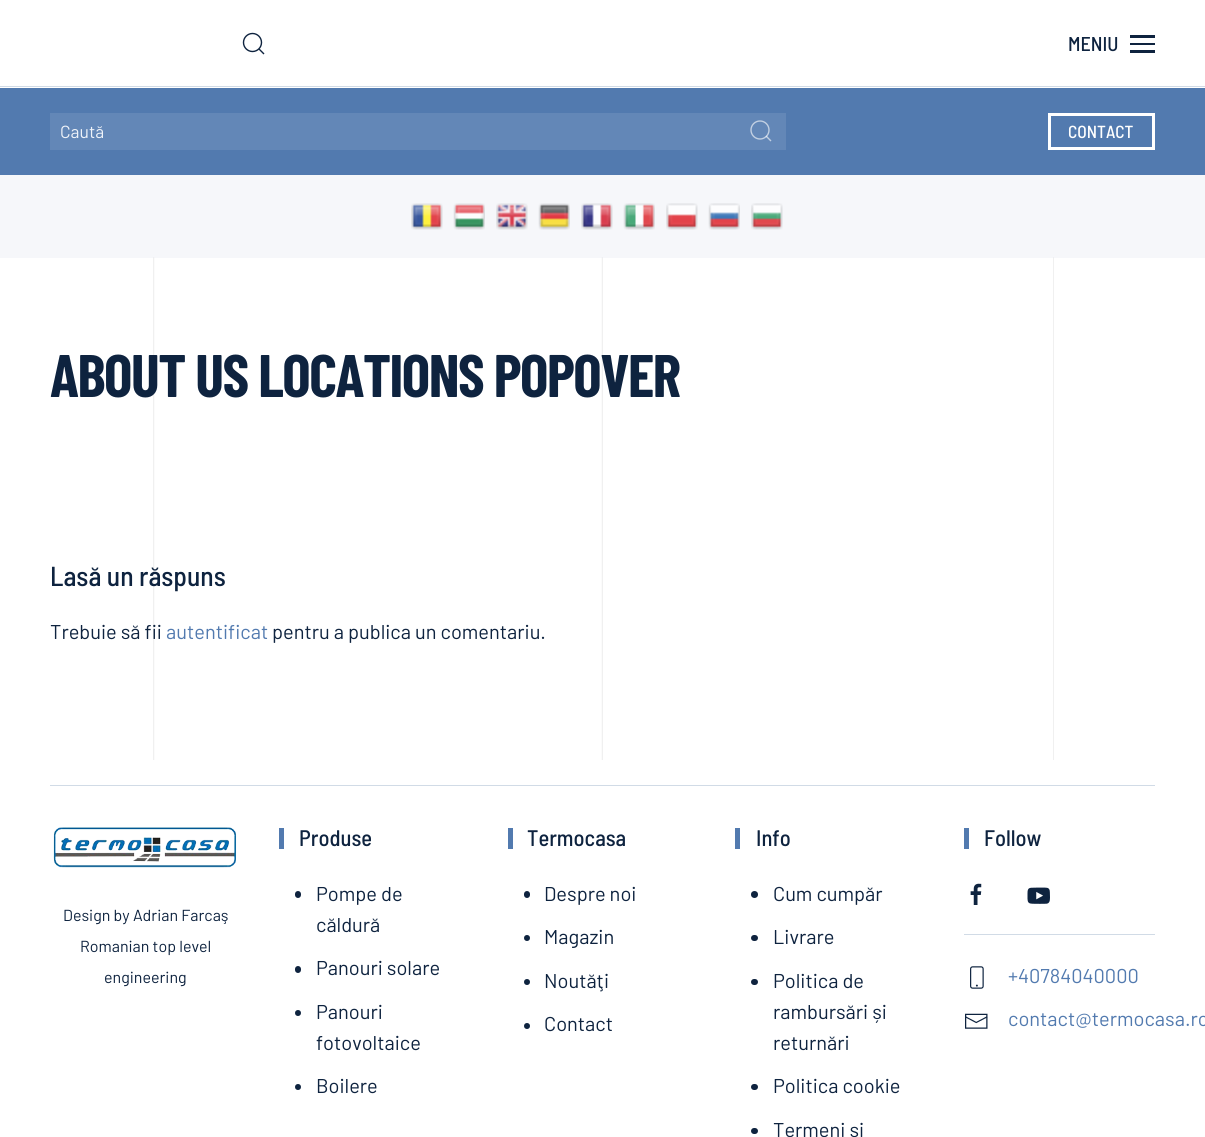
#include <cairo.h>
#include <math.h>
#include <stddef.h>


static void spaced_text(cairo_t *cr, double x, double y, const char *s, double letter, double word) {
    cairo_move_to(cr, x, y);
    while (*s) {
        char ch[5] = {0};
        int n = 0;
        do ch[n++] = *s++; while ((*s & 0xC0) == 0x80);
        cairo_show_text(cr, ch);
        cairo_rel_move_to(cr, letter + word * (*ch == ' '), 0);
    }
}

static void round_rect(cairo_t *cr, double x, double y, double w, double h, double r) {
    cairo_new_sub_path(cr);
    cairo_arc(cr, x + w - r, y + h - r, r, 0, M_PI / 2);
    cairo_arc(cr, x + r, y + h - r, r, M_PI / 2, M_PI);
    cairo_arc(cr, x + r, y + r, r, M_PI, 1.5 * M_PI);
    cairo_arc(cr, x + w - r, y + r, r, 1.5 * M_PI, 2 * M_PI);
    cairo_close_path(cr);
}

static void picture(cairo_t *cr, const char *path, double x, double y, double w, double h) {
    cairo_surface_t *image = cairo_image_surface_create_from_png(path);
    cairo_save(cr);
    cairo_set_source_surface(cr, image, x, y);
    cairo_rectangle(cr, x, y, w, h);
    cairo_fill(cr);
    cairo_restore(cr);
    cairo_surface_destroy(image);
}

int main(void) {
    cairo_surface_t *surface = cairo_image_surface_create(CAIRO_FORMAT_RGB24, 1205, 1137);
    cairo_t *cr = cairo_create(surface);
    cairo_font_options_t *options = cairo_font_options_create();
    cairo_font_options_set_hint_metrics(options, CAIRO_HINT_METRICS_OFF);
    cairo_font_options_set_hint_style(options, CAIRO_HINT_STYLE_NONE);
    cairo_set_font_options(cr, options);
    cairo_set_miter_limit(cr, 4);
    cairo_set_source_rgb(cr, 1, 1, 1);
    cairo_paint(cr);
    cairo_set_source_rgb(cr, 0.82, 0.859, 0.902);
    cairo_rectangle(cr, 0, 86, 1205, 1);
    cairo_fill(cr);
    cairo_arc(cr, 252.5, 42.5, 9, 0, 2 * M_PI);
    cairo_set_source_rgb(cr, 0.055, 0.137, 0.247);
    cairo_set_line_width(cr, 1.4);
    cairo_stroke(cr);
    cairo_new_path(cr);
    cairo_move_to(cr, 259, 49);
    cairo_line_to(cr, 264, 54);
    cairo_close_path(cr);
    cairo_stroke(cr);
    cairo_select_font_face(cr, "Barlow Semi Condensed Medium", CAIRO_FONT_SLANT_NORMAL, CAIRO_FONT_WEIGHT_NORMAL);
    cairo_set_font_size(cr, 20);
    cairo_move_to(cr, 1068, 51);
    cairo_show_text(cr, "MENIU");
    cairo_rectangle(cr, 1130, 35, 25, 3);
    cairo_fill(cr);
    cairo_rectangle(cr, 1130, 43, 25, 2);
    cairo_fill(cr);
    cairo_rectangle(cr, 1130, 50, 25, 3);
    cairo_fill(cr);
    cairo_set_source_rgb(cr, 0.322, 0.478, 0.686);
    cairo_rectangle(cr, 0, 88, 1205, 87);
    cairo_fill(cr);
    cairo_set_source_rgb(cr, 0.388, 0.529, 0.718);
    cairo_rectangle(cr, 50, 113, 736, 37);
    cairo_fill(cr);
    cairo_select_font_face(cr, "Barlow", CAIRO_FONT_SLANT_NORMAL, CAIRO_FONT_WEIGHT_NORMAL);
    cairo_set_font_size(cr, 17.5);
    cairo_set_source_rgb(cr, 0.937, 0.953, 0.973);
    cairo_move_to(cr, 60, 138);
    cairo_show_text(cr, "Caută");
    cairo_new_path(cr);
    cairo_arc(cr, 760, 130, 9, 0, 2 * M_PI);
    cairo_set_source_rgb(cr, 0.757, 0.812, 0.886);
    cairo_stroke(cr);
    cairo_new_path(cr);
    cairo_move_to(cr, 766, 136);
    cairo_line_to(cr, 771, 141);
    cairo_close_path(cr);
    cairo_set_source_rgba(cr, 1, 1, 1, 0.6);
    cairo_stroke(cr);
    cairo_rectangle(cr, 1049.5, 114.5, 104, 34);
    cairo_set_source_rgb(cr, 1, 1, 1);
    cairo_set_line_width(cr, 3);
    cairo_stroke(cr);
    cairo_select_font_face(cr, "Barlow Semi Condensed Medium", CAIRO_FONT_SLANT_NORMAL, CAIRO_FONT_WEIGHT_NORMAL);
    cairo_move_to(cr, 1068, 138);
    cairo_show_text(cr, "CONTACT");
    cairo_set_source_rgb(cr, 0.961, 0.965, 0.98);
    cairo_rectangle(cr, 0, 175, 1205, 83);
    cairo_fill(cr);
    picture(cr, "img1.png", 411, 203, 32, 27);
    picture(cr, "img2.png", 453, 203, 32, 27);
    picture(cr, "img3.png", 496, 203, 32, 27);
    picture(cr, "img4.png", 538, 203, 32, 27);
    picture(cr, "img5.png", 581, 203, 32, 27);
    picture(cr, "img6.png", 623, 203, 32, 27);
    picture(cr, "img7.png", 666, 203, 32, 27);
    picture(cr, "img8.png", 708, 203, 32, 27);
    picture(cr, "img9.png", 751, 203, 32, 27);
    picture(cr, "img10.png", 153, 257, 901, 503);
    cairo_select_font_face(cr, "Barlow Condensed", CAIRO_FONT_SLANT_NORMAL, CAIRO_FONT_WEIGHT_BOLD);
    cairo_set_font_size(cr, 60);
    cairo_set_source_rgb(cr, 0.055, 0.137, 0.247);
    spaced_text(cr, 50, 397, "ABOUT US LOCATIONS POPOVER", -1.5, 0);
    cairo_select_font_face(cr, "Barlow Semi Condensed Medium", CAIRO_FONT_SLANT_NORMAL, CAIRO_FONT_WEIGHT_NORMAL);
    cairo_set_font_size(cr, 27.5);
    cairo_move_to(cr, 50, 586);
    cairo_show_text(cr, "Lasă un răspuns");
    cairo_select_font_face(cr, "Barlow", CAIRO_FONT_SLANT_NORMAL, CAIRO_FONT_WEIGHT_NORMAL);
    cairo_set_font_size(cr, 20);
    cairo_move_to(cr, 50, 639);
    cairo_show_text(cr, "Trebuie să fii");
    cairo_set_source_rgb(cr, 0.322, 0.478, 0.686);
    cairo_move_to(cr, 166, 639);
    cairo_show_text(cr, "autentificat");
    cairo_set_source_rgb(cr, 0.055, 0.137, 0.247);
    cairo_move_to(cr, 272, 639);
    cairo_show_text(cr, "pentru a publica un comentariu.");
    cairo_set_source_rgb(cr, 0.82, 0.859, 0.902);
    cairo_rectangle(cr, 50, 785, 1105, 1);
    cairo_fill(cr);
    picture(cr, "img11.png", 53, 827, 184, 41);
    cairo_set_font_size(cr, 16);
    cairo_set_source_rgb(cr, 0.055, 0.137, 0.247);
    cairo_move_to(cr, 63, 921);
    cairo_show_text(cr, "Design by Adrian Farcaş");
    cairo_move_to(cr, 80, 952);
    cairo_show_text(cr, "Romanian top level");
    cairo_move_to(cr, 104, 983);
    cairo_show_text(cr, "engineering");
    cairo_set_source_rgb(cr, 0.322, 0.478, 0.686);
    cairo_rectangle(cr, 279, 828, 5, 21);
    cairo_fill(cr);
    cairo_select_font_face(cr, "Barlow Semi Condensed Medium", CAIRO_FONT_SLANT_NORMAL, CAIRO_FONT_WEIGHT_NORMAL);
    cairo_set_font_size(cr, 22.5);
    cairo_set_source_rgb(cr, 0.055, 0.137, 0.247);
    cairo_move_to(cr, 299, 846);
    cairo_show_text(cr, "Produse");
    round_rect(cr, 295, 891, 6, 7, 3);
    cairo_fill(cr);
    cairo_select_font_face(cr, "Barlow", CAIRO_FONT_SLANT_NORMAL, CAIRO_FONT_WEIGHT_NORMAL);
    cairo_set_font_size(cr, 20);
    cairo_move_to(cr, 316, 901);
    cairo_show_text(cr, "Pompe de");
    cairo_move_to(cr, 316, 932);
    cairo_show_text(cr, "căldură");
    round_rect(cr, 295, 966, 6, 7, 3);
    cairo_fill(cr);
    cairo_move_to(cr, 316, 975);
    cairo_show_text(cr, "Panouri solare");
    cairo_new_path(cr);
    cairo_arc(cr, 298, 1013, 3, 0, 2 * M_PI);
    cairo_fill(cr);
    cairo_move_to(cr, 316, 1019);
    cairo_show_text(cr, "Panouri");
    cairo_move_to(cr, 316, 1050);
    cairo_show_text(cr, "fotovoltaice");
    cairo_new_path(cr);
    cairo_arc(cr, 298, 1087, 3, 0, 2 * M_PI);
    cairo_fill(cr);
    cairo_move_to(cr, 316, 1093);
    cairo_show_text(cr, "Boilere");
    cairo_set_source_rgb(cr, 0.322, 0.478, 0.686);
    cairo_rectangle(cr, 508, 828, 5, 21);
    cairo_fill(cr);
    cairo_select_font_face(cr, "Barlow Semi Condensed Medium", CAIRO_FONT_SLANT_NORMAL, CAIRO_FONT_WEIGHT_NORMAL);
    cairo_set_font_size(cr, 22.5);
    cairo_set_source_rgb(cr, 0.055, 0.137, 0.247);
    cairo_move_to(cr, 527, 846);
    cairo_show_text(cr, "Termocasa");
    round_rect(cr, 524, 891, 6, 7, 3);
    cairo_fill(cr);
    cairo_select_font_face(cr, "Barlow", CAIRO_FONT_SLANT_NORMAL, CAIRO_FONT_WEIGHT_NORMAL);
    cairo_set_font_size(cr, 20);
    cairo_move_to(cr, 544, 901);
    cairo_show_text(cr, "Despre noi");
    cairo_new_path(cr);
    cairo_arc(cr, 527, 938, 3, 0, 2 * M_PI);
    cairo_fill(cr);
    cairo_move_to(cr, 544, 944);
    cairo_show_text(cr, "Magazin");
    cairo_new_path(cr);
    cairo_arc(cr, 527, 982, 3, 0, 2 * M_PI);
    cairo_fill(cr);
    cairo_move_to(cr, 544, 988);
    cairo_show_text(cr, "Noutăţi");
    cairo_new_path(cr);
    cairo_arc(cr, 527, 1026, 3, 0, 2 * M_PI);
    cairo_fill(cr);
    cairo_move_to(cr, 544, 1031);
    cairo_show_text(cr, "Contact");
    cairo_set_source_rgb(cr, 0.322, 0.478, 0.686);
    cairo_rectangle(cr, 735, 828, 5, 21);
    cairo_fill(cr);
    cairo_select_font_face(cr, "Barlow Semi Condensed Medium", CAIRO_FONT_SLANT_NORMAL, CAIRO_FONT_WEIGHT_NORMAL);
    cairo_set_font_size(cr, 22.5);
    cairo_set_source_rgb(cr, 0.055, 0.137, 0.247);
    cairo_move_to(cr, 756, 846);
    cairo_show_text(cr, "Info");
    cairo_new_path(cr);
    cairo_arc(cr, 754.5, 894.5, 3.5, 0, 2 * M_PI);
    cairo_fill(cr);
    cairo_select_font_face(cr, "Barlow", CAIRO_FONT_SLANT_NORMAL, CAIRO_FONT_WEIGHT_NORMAL);
    cairo_set_font_size(cr, 20);
    cairo_move_to(cr, 773, 901);
    cairo_show_text(cr, "Cum cumpăr");
    round_rect(cr, 751, 935, 7, 6, 3);
    cairo_fill(cr);
    cairo_move_to(cr, 773, 944);
    cairo_show_text(cr, "Livrare");
    round_rect(cr, 751, 979, 7, 6, 3);
    cairo_fill(cr);
    cairo_move_to(cr, 773, 988);
    cairo_show_text(cr, "Politica de");
    cairo_move_to(cr, 773, 1019);
    cairo_show_text(cr, "rambursări și");
    cairo_move_to(cr, 773, 1050);
    cairo_show_text(cr, "returnări");
    round_rect(cr, 751, 1084, 7, 6, 3);
    cairo_fill(cr);
    cairo_move_to(cr, 773, 1093);
    cairo_show_text(cr, "Politica cookie");
    round_rect(cr, 751, 1128, 7, 6, 3);
    cairo_fill(cr);
    cairo_move_to(cr, 773, 1137);
    cairo_show_text(cr, "Termeni și");
    cairo_set_source_rgb(cr, 0.322, 0.478, 0.686);
    cairo_rectangle(cr, 964, 828, 5, 21);
    cairo_fill(cr);
    cairo_select_font_face(cr, "Barlow Semi Condensed Medium", CAIRO_FONT_SLANT_NORMAL, CAIRO_FONT_WEIGHT_NORMAL);
    cairo_set_font_size(cr, 22.5);
    cairo_set_source_rgb(cr, 0.055, 0.137, 0.247);
    cairo_move_to(cr, 984, 846);
    cairo_show_text(cr, "Follow");
    picture(cr, "img12.png", 970, 883, 12, 22);
    picture(cr, "img13.png", 1027, 887, 23, 17);
    cairo_set_source_rgb(cr, 0.82, 0.859, 0.902);
    cairo_rectangle(cr, 964, 934, 191, 1);
    cairo_fill(cr);
    picture(cr, "img14.png", 970, 966, 14, 23);
    cairo_select_font_face(cr, "Barlow", CAIRO_FONT_SLANT_NORMAL, CAIRO_FONT_WEIGHT_NORMAL);
    cairo_set_font_size(cr, 20);
    cairo_set_source_rgb(cr, 0.322, 0.478, 0.686);
    cairo_move_to(cr, 1008, 983);
    cairo_show_text(cr, "+40784040000");
    picture(cr, "img15.png", 965, 1013, 23, 16);
    cairo_move_to(cr, 1008, 1026);
    cairo_show_text(cr, "contact@termocasa.ro");
    cairo_surface_write_to_png(surface, "page.png");
    cairo_font_options_destroy(options);
    cairo_destroy(cr);
    cairo_surface_destroy(surface);
    return 0;
}
